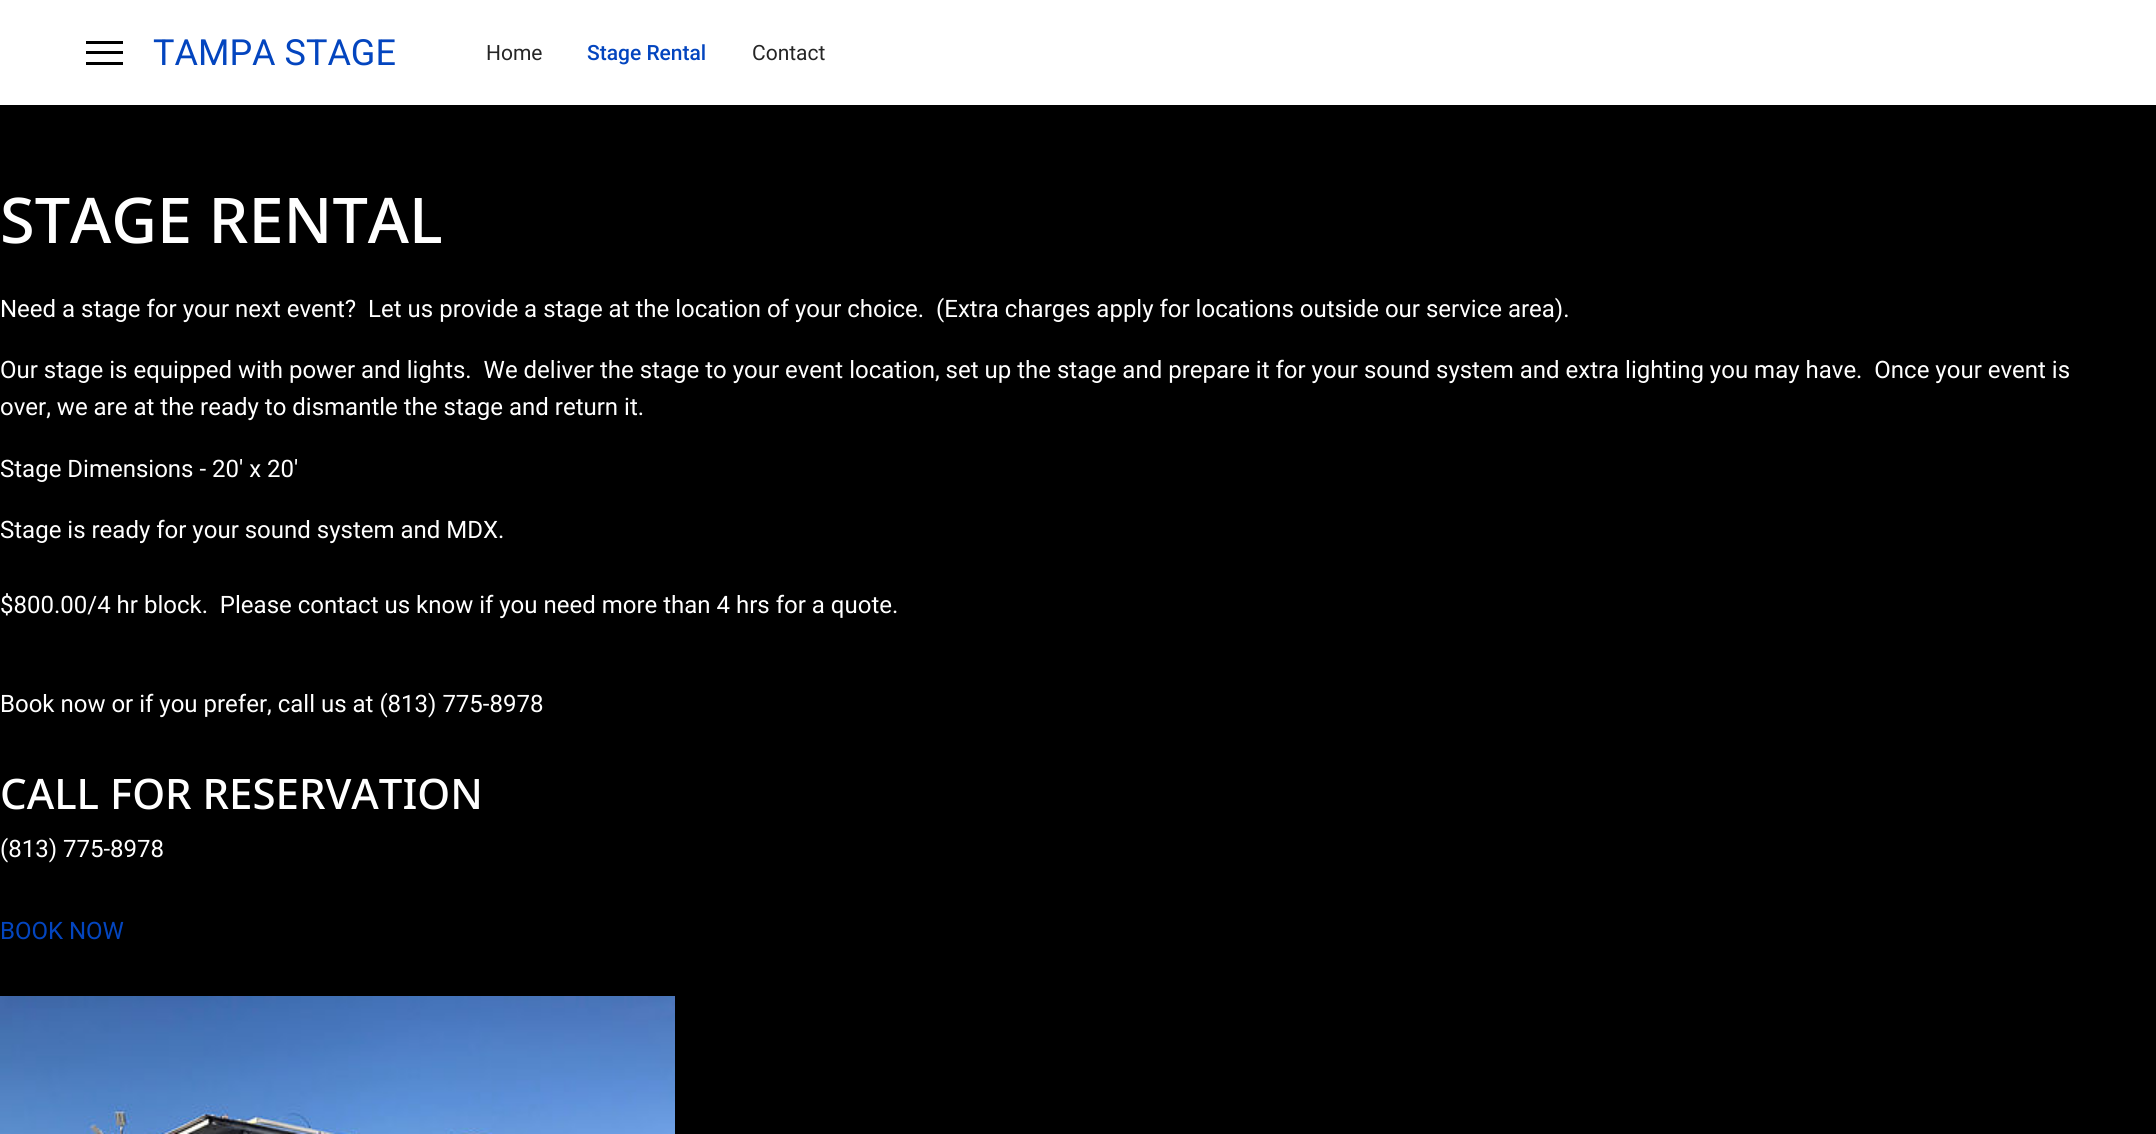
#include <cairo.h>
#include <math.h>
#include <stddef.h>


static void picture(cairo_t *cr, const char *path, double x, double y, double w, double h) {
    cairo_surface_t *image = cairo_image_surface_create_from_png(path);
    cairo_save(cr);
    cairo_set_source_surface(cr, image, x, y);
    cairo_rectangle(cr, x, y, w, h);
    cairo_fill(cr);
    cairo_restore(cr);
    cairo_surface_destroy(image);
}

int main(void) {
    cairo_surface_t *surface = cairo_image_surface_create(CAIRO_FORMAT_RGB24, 2156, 1134);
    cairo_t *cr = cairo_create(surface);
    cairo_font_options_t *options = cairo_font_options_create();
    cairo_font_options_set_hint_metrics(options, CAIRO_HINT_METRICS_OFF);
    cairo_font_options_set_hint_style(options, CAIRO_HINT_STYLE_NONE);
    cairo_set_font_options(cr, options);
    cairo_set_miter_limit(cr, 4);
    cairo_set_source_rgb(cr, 1, 1, 1);
    cairo_paint(cr);
    cairo_set_source_rgb(cr, 0, 0, 0);
    cairo_rectangle(cr, 86, 41, 37, 3);
    cairo_fill(cr);
    cairo_rectangle(cr, 86, 51, 37, 3);
    cairo_fill(cr);
    cairo_rectangle(cr, 86, 62, 37, 3);
    cairo_fill(cr);
    cairo_select_font_face(cr, "Roboto", CAIRO_FONT_SLANT_NORMAL, CAIRO_FONT_WEIGHT_NORMAL);
    cairo_set_font_size(cr, 36);
    cairo_set_source_rgb(cr, 0.012, 0.271, 0.749);
    cairo_move_to(cr, 153, 65);
    cairo_show_text(cr, "TAMPA STAGE");
    cairo_set_font_size(cr, 21);
    cairo_set_source_rgb(cr, 0.145, 0.145, 0.145);
    cairo_move_to(cr, 486, 60);
    cairo_show_text(cr, "Home");
    cairo_select_font_face(cr, "Roboto Medium", CAIRO_FONT_SLANT_NORMAL, CAIRO_FONT_WEIGHT_NORMAL);
    cairo_set_source_rgb(cr, 0.012, 0.271, 0.749);
    cairo_move_to(cr, 587, 60);
    cairo_show_text(cr, "Stage Rental");
    cairo_select_font_face(cr, "Roboto", CAIRO_FONT_SLANT_NORMAL, CAIRO_FONT_WEIGHT_NORMAL);
    cairo_set_source_rgb(cr, 0.145, 0.145, 0.145);
    cairo_move_to(cr, 752, 60);
    cairo_show_text(cr, "Contact");
    cairo_set_source_rgb(cr, 0, 0, 0);
    cairo_rectangle(cr, 0, 105, 2156, 1029);
    cairo_fill(cr);
    cairo_select_font_face(cr, "Noto Sans Medium", CAIRO_FONT_SLANT_NORMAL, CAIRO_FONT_WEIGHT_NORMAL);
    cairo_set_font_size(cr, 63);
    cairo_set_source_rgb(cr, 1, 1, 1);
    cairo_move_to(cr, 0, 243);
    cairo_show_text(cr, "STAGE RENTAL");
    cairo_select_font_face(cr, "Roboto", CAIRO_FONT_SLANT_NORMAL, CAIRO_FONT_WEIGHT_NORMAL);
    cairo_set_font_size(cr, 24);
    cairo_move_to(cr, 0, 317);
    cairo_show_text(cr, "Need a stage for your next event?  Let us provide a stage at the location of your choice.  (Extra charges apply for locations outside our service area).");
    cairo_move_to(cr, 0, 378);
    cairo_show_text(cr, "Our stage is equipped with power and lights.  We deliver the stage to your event location, set up the stage and prepare it for your sound system and extra lighting you may have.  Once your event is");
    cairo_move_to(cr, 0, 415);
    cairo_show_text(cr, "over, we are at the ready to dismantle the stage and return it.");
    cairo_move_to(cr, 0, 477);
    cairo_show_text(cr, "Stage Dimensions - 20' x 20'");
    cairo_move_to(cr, 0, 538);
    cairo_show_text(cr, "Stage is ready for your sound system and MDX.");
    cairo_move_to(cr, 0, 613);
    cairo_show_text(cr, "$800.00/4 hr block.  Please contact us know if you need more than 4 hrs for a quote.");
    cairo_move_to(cr, 0, 712);
    cairo_show_text(cr, "Book now or if you prefer, call us at (813) 775-8978");
    cairo_select_font_face(cr, "Noto Sans Medium", CAIRO_FONT_SLANT_NORMAL, CAIRO_FONT_WEIGHT_NORMAL);
    cairo_set_font_size(cr, 42);
    cairo_move_to(cr, 0, 809);
    cairo_show_text(cr, "CALL FOR RESERVATION");
    cairo_select_font_face(cr, "Roboto", CAIRO_FONT_SLANT_NORMAL, CAIRO_FONT_WEIGHT_NORMAL);
    cairo_set_font_size(cr, 24);
    cairo_move_to(cr, 0, 857);
    cairo_show_text(cr, "(813) 775-8978");
    cairo_set_source_rgb(cr, 0.012, 0.271, 0.749);
    cairo_move_to(cr, 0, 939);
    cairo_show_text(cr, "BOOK NOW");
    picture(cr, "img1.png", 0, 996, 675, 138);
    cairo_surface_write_to_png(surface, "page.png");
    cairo_font_options_destroy(options);
    cairo_destroy(cr);
    cairo_surface_destroy(surface);
    return 0;
}
